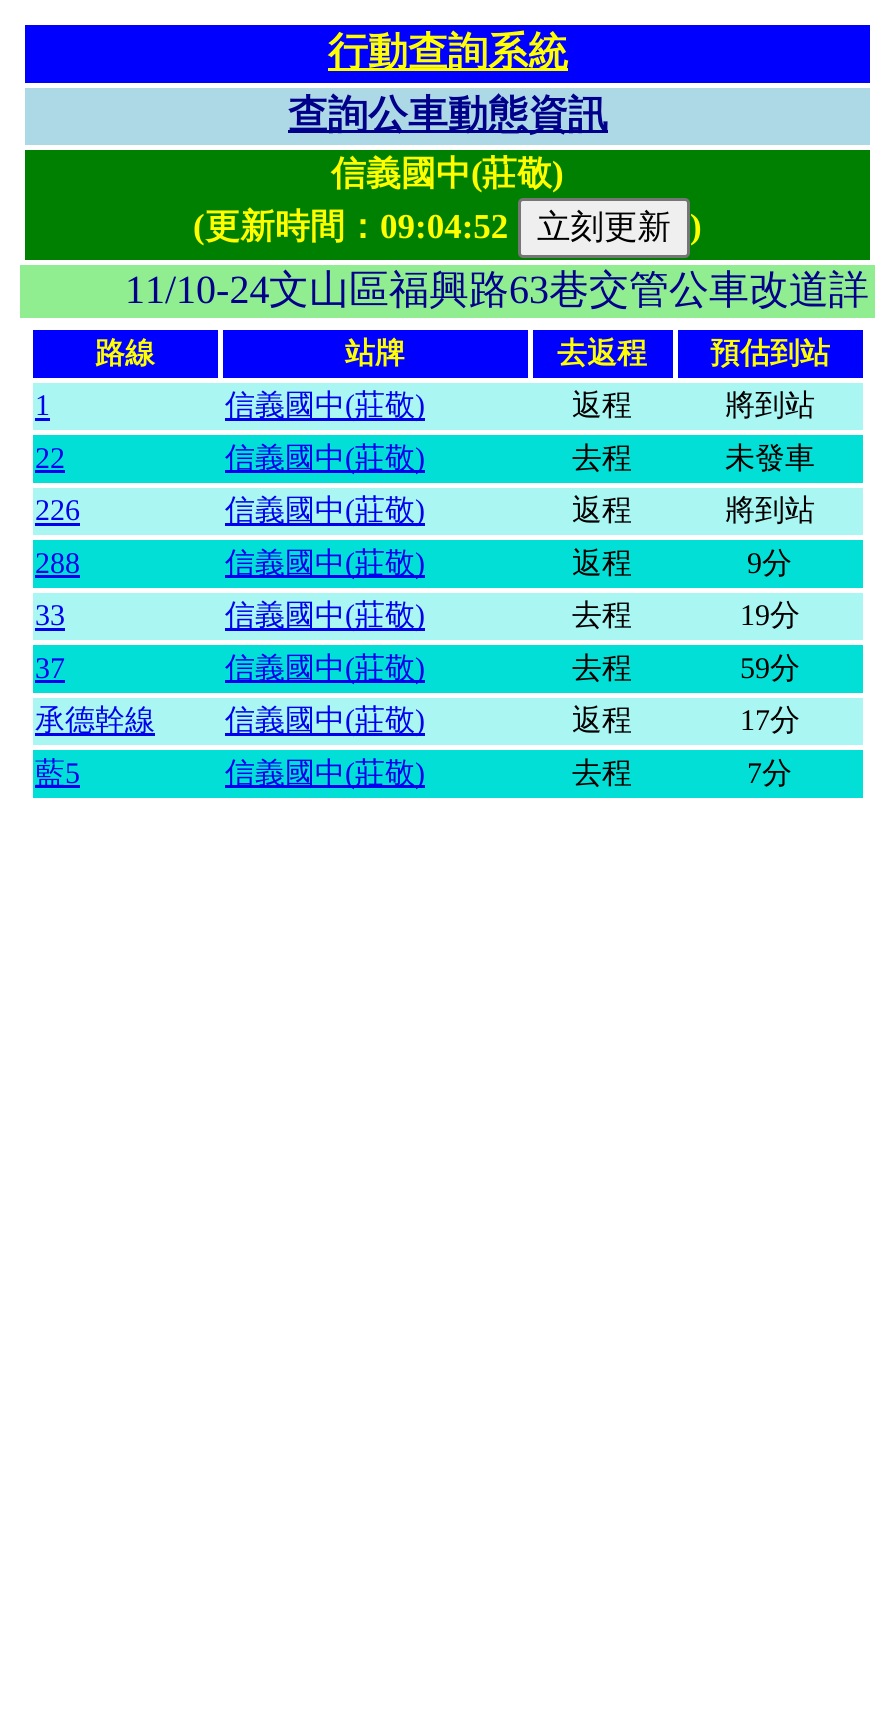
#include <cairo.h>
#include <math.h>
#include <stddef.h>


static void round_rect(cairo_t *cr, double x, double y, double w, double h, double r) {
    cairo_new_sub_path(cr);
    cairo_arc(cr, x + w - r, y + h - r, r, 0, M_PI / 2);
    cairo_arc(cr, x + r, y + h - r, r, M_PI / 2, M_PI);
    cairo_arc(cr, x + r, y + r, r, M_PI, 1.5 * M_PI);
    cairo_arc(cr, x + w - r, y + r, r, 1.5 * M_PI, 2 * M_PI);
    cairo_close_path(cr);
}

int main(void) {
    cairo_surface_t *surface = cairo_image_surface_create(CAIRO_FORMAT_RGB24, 895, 1725);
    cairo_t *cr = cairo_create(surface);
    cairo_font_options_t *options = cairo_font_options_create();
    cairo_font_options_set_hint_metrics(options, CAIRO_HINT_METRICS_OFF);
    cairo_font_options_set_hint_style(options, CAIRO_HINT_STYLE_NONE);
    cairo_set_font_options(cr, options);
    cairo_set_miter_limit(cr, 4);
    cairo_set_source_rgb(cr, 1, 1, 1);
    cairo_paint(cr);
    cairo_set_source_rgb(cr, 0, 0, 1);
    cairo_rectangle(cr, 25, 25, 845, 58);
    cairo_fill(cr);
    cairo_set_source_rgb(cr, 1, 1, 0);
    cairo_rectangle(cr, 328, 68, 240, 3);
    cairo_fill(cr);
    cairo_select_font_face(cr, "WenQuanYi Zen Hei", CAIRO_FONT_SLANT_NORMAL, CAIRO_FONT_WEIGHT_BOLD);
    cairo_set_font_size(cr, 40);
    cairo_move_to(cr, 328, 65);
    cairo_show_text(cr, "行動查詢系統");
    cairo_set_source_rgb(cr, 0.678, 0.847, 0.902);
    cairo_rectangle(cr, 25, 88, 845, 57);
    cairo_fill(cr);
    cairo_set_source_rgb(cr, 0, 0, 0.545);
    cairo_rectangle(cr, 288, 130, 320, 3);
    cairo_fill(cr);
    cairo_move_to(cr, 288, 128);
    cairo_show_text(cr, "查詢公車動態資訊");
    cairo_set_source_rgb(cr, 0, 0.502, 0);
    cairo_rectangle(cr, 25, 150, 845, 110);
    cairo_fill(cr);
    cairo_set_font_size(cr, 35);
    cairo_set_source_rgb(cr, 1, 1, 0);
    cairo_move_to(cr, 331, 185);
    cairo_show_text(cr, "信義國中");
    cairo_select_font_face(cr, "Liberation Serif", CAIRO_FONT_SLANT_NORMAL, CAIRO_FONT_WEIGHT_BOLD);
    cairo_move_to(cr, 471, 185);
    cairo_show_text(cr, "(");
    cairo_select_font_face(cr, "WenQuanYi Zen Hei", CAIRO_FONT_SLANT_NORMAL, CAIRO_FONT_WEIGHT_BOLD);
    cairo_move_to(cr, 482, 185);
    cairo_show_text(cr, "莊敬");
    cairo_select_font_face(cr, "Liberation Serif", CAIRO_FONT_SLANT_NORMAL, CAIRO_FONT_WEIGHT_BOLD);
    cairo_move_to(cr, 552, 185);
    cairo_show_text(cr, ")");
    cairo_move_to(cr, 193, 238);
    cairo_show_text(cr, "(");
    cairo_select_font_face(cr, "WenQuanYi Zen Hei", CAIRO_FONT_SLANT_NORMAL, CAIRO_FONT_WEIGHT_BOLD);
    cairo_move_to(cr, 205, 238);
    cairo_show_text(cr, "更新時間：");
    cairo_select_font_face(cr, "Liberation Serif", CAIRO_FONT_SLANT_NORMAL, CAIRO_FONT_WEIGHT_BOLD);
    cairo_move_to(cr, 380, 238);
    cairo_show_text(cr, "09:04:52");
    cairo_set_source_rgb(cr, 0.937, 0.937, 0.937);
    round_rect(cr, 519.5, 199.5, 169, 57, 3.5);
    cairo_fill_preserve(cr);
    cairo_set_source_rgb(cr, 0.463, 0.463, 0.463);
    cairo_set_line_width(cr, 3);
    cairo_stroke(cr);
    cairo_select_font_face(cr, "WenQuanYi Zen Hei Medium", CAIRO_FONT_SLANT_NORMAL, CAIRO_FONT_WEIGHT_NORMAL);
    cairo_set_font_size(cr, 33.5);
    cairo_set_source_rgb(cr, 0, 0, 0);
    cairo_move_to(cr, 537, 238);
    cairo_show_text(cr, "立刻更新");
    cairo_select_font_face(cr, "Liberation Serif", CAIRO_FONT_SLANT_NORMAL, CAIRO_FONT_WEIGHT_BOLD);
    cairo_set_font_size(cr, 35);
    cairo_set_source_rgb(cr, 1, 1, 0);
    cairo_move_to(cr, 690, 238);
    cairo_show_text(cr, ")");
    cairo_set_source_rgb(cr, 0.565, 0.933, 0.565);
    cairo_rectangle(cr, 20, 265, 855, 53);
    cairo_fill(cr);
    cairo_select_font_face(cr, "Liberation Serif", CAIRO_FONT_SLANT_NORMAL, CAIRO_FONT_WEIGHT_NORMAL);
    cairo_set_font_size(cr, 40);
    cairo_set_source_rgb(cr, 0, 0, 0.545);
    cairo_move_to(cr, 125, 303);
    cairo_show_text(cr, "11/10-24");
    cairo_select_font_face(cr, "WenQuanYi Zen Hei Medium", CAIRO_FONT_SLANT_NORMAL, CAIRO_FONT_WEIGHT_NORMAL);
    cairo_move_to(cr, 269, 303);
    cairo_show_text(cr, "文山區福興路");
    cairo_select_font_face(cr, "Liberation Serif", CAIRO_FONT_SLANT_NORMAL, CAIRO_FONT_WEIGHT_NORMAL);
    cairo_move_to(cr, 509, 303);
    cairo_show_text(cr, "63");
    cairo_select_font_face(cr, "WenQuanYi Zen Hei Medium", CAIRO_FONT_SLANT_NORMAL, CAIRO_FONT_WEIGHT_NORMAL);
    cairo_move_to(cr, 549, 303);
    cairo_show_text(cr, "巷交管公車改道詳");
    cairo_set_source_rgb(cr, 0, 0, 1);
    cairo_rectangle(cr, 33, 330, 185, 48);
    cairo_fill(cr);
    cairo_select_font_face(cr, "WenQuanYi Zen Hei", CAIRO_FONT_SLANT_NORMAL, CAIRO_FONT_WEIGHT_BOLD);
    cairo_set_font_size(cr, 30);
    cairo_set_source_rgb(cr, 1, 1, 0);
    cairo_move_to(cr, 95, 363);
    cairo_show_text(cr, "路線");
    cairo_set_source_rgb(cr, 0, 0, 1);
    cairo_rectangle(cr, 223, 330, 305, 48);
    cairo_fill(cr);
    cairo_set_source_rgb(cr, 1, 1, 0);
    cairo_move_to(cr, 345, 363);
    cairo_show_text(cr, "站牌");
    cairo_set_source_rgb(cr, 0, 0, 1);
    cairo_rectangle(cr, 533, 330, 140, 48);
    cairo_fill(cr);
    cairo_set_source_rgb(cr, 1, 1, 0);
    cairo_move_to(cr, 557, 363);
    cairo_show_text(cr, "去返程");
    cairo_set_source_rgb(cr, 0, 0, 1);
    cairo_rectangle(cr, 678, 330, 185, 48);
    cairo_fill(cr);
    cairo_set_source_rgb(cr, 1, 1, 0);
    cairo_move_to(cr, 710, 363);
    cairo_show_text(cr, "預估到站");
    cairo_set_source_rgb(cr, 0.663, 0.961, 0.949);
    cairo_rectangle(cr, 33, 383, 830, 47);
    cairo_fill(cr);
    cairo_select_font_face(cr, "Liberation Serif", CAIRO_FONT_SLANT_NORMAL, CAIRO_FONT_WEIGHT_NORMAL);
    cairo_set_source_rgb(cr, 0, 0, 0.933);
    cairo_move_to(cr, 35, 415);
    cairo_show_text(cr, "1");
    cairo_rectangle(cr, 35, 418, 15, 3);
    cairo_fill(cr);
    cairo_rectangle(cr, 225, 418, 200, 3);
    cairo_fill(cr);
    cairo_select_font_face(cr, "WenQuanYi Zen Hei Medium", CAIRO_FONT_SLANT_NORMAL, CAIRO_FONT_WEIGHT_NORMAL);
    cairo_move_to(cr, 225, 415);
    cairo_show_text(cr, "信義國中");
    cairo_select_font_face(cr, "Liberation Serif", CAIRO_FONT_SLANT_NORMAL, CAIRO_FONT_WEIGHT_NORMAL);
    cairo_move_to(cr, 345, 415);
    cairo_show_text(cr, "(");
    cairo_select_font_face(cr, "WenQuanYi Zen Hei Medium", CAIRO_FONT_SLANT_NORMAL, CAIRO_FONT_WEIGHT_NORMAL);
    cairo_move_to(cr, 355, 415);
    cairo_show_text(cr, "莊敬");
    cairo_select_font_face(cr, "Liberation Serif", CAIRO_FONT_SLANT_NORMAL, CAIRO_FONT_WEIGHT_NORMAL);
    cairo_move_to(cr, 415, 415);
    cairo_show_text(cr, ")");
    cairo_select_font_face(cr, "WenQuanYi Zen Hei Medium", CAIRO_FONT_SLANT_NORMAL, CAIRO_FONT_WEIGHT_NORMAL);
    cairo_set_source_rgb(cr, 0, 0, 0);
    cairo_move_to(cr, 572, 415);
    cairo_show_text(cr, "返程");
    cairo_move_to(cr, 725, 415);
    cairo_show_text(cr, "將到站");
    cairo_set_source_rgb(cr, 0.004, 0.875, 0.843);
    cairo_rectangle(cr, 33, 435, 830, 48);
    cairo_fill(cr);
    cairo_select_font_face(cr, "Liberation Serif", CAIRO_FONT_SLANT_NORMAL, CAIRO_FONT_WEIGHT_NORMAL);
    cairo_set_source_rgb(cr, 0, 0, 0.933);
    cairo_move_to(cr, 35, 468);
    cairo_show_text(cr, "22");
    cairo_rectangle(cr, 35, 470, 30, 3);
    cairo_fill(cr);
    cairo_rectangle(cr, 225, 470, 200, 3);
    cairo_fill(cr);
    cairo_select_font_face(cr, "WenQuanYi Zen Hei Medium", CAIRO_FONT_SLANT_NORMAL, CAIRO_FONT_WEIGHT_NORMAL);
    cairo_move_to(cr, 225, 468);
    cairo_show_text(cr, "信義國中");
    cairo_select_font_face(cr, "Liberation Serif", CAIRO_FONT_SLANT_NORMAL, CAIRO_FONT_WEIGHT_NORMAL);
    cairo_move_to(cr, 345, 468);
    cairo_show_text(cr, "(");
    cairo_select_font_face(cr, "WenQuanYi Zen Hei Medium", CAIRO_FONT_SLANT_NORMAL, CAIRO_FONT_WEIGHT_NORMAL);
    cairo_move_to(cr, 355, 468);
    cairo_show_text(cr, "莊敬");
    cairo_select_font_face(cr, "Liberation Serif", CAIRO_FONT_SLANT_NORMAL, CAIRO_FONT_WEIGHT_NORMAL);
    cairo_move_to(cr, 415, 468);
    cairo_show_text(cr, ")");
    cairo_select_font_face(cr, "WenQuanYi Zen Hei Medium", CAIRO_FONT_SLANT_NORMAL, CAIRO_FONT_WEIGHT_NORMAL);
    cairo_set_source_rgb(cr, 0, 0, 0);
    cairo_move_to(cr, 572, 468);
    cairo_show_text(cr, "去程");
    cairo_move_to(cr, 725, 468);
    cairo_show_text(cr, "未發車");
    cairo_set_source_rgb(cr, 0.663, 0.961, 0.949);
    cairo_rectangle(cr, 33, 488, 830, 47);
    cairo_fill(cr);
    cairo_select_font_face(cr, "Liberation Serif", CAIRO_FONT_SLANT_NORMAL, CAIRO_FONT_WEIGHT_NORMAL);
    cairo_set_source_rgb(cr, 0, 0, 0.933);
    cairo_move_to(cr, 35, 520);
    cairo_show_text(cr, "226");
    cairo_rectangle(cr, 35, 523, 45, 3);
    cairo_fill(cr);
    cairo_rectangle(cr, 225, 523, 200, 3);
    cairo_fill(cr);
    cairo_select_font_face(cr, "WenQuanYi Zen Hei Medium", CAIRO_FONT_SLANT_NORMAL, CAIRO_FONT_WEIGHT_NORMAL);
    cairo_move_to(cr, 225, 520);
    cairo_show_text(cr, "信義國中");
    cairo_select_font_face(cr, "Liberation Serif", CAIRO_FONT_SLANT_NORMAL, CAIRO_FONT_WEIGHT_NORMAL);
    cairo_move_to(cr, 345, 520);
    cairo_show_text(cr, "(");
    cairo_select_font_face(cr, "WenQuanYi Zen Hei Medium", CAIRO_FONT_SLANT_NORMAL, CAIRO_FONT_WEIGHT_NORMAL);
    cairo_move_to(cr, 355, 520);
    cairo_show_text(cr, "莊敬");
    cairo_select_font_face(cr, "Liberation Serif", CAIRO_FONT_SLANT_NORMAL, CAIRO_FONT_WEIGHT_NORMAL);
    cairo_move_to(cr, 415, 520);
    cairo_show_text(cr, ")");
    cairo_select_font_face(cr, "WenQuanYi Zen Hei Medium", CAIRO_FONT_SLANT_NORMAL, CAIRO_FONT_WEIGHT_NORMAL);
    cairo_set_source_rgb(cr, 0, 0, 0);
    cairo_move_to(cr, 572, 520);
    cairo_show_text(cr, "返程");
    cairo_move_to(cr, 725, 520);
    cairo_show_text(cr, "將到站");
    cairo_set_source_rgb(cr, 0.004, 0.875, 0.843);
    cairo_rectangle(cr, 33, 540, 830, 48);
    cairo_fill(cr);
    cairo_select_font_face(cr, "Liberation Serif", CAIRO_FONT_SLANT_NORMAL, CAIRO_FONT_WEIGHT_NORMAL);
    cairo_set_source_rgb(cr, 0, 0, 0.933);
    cairo_move_to(cr, 35, 573);
    cairo_show_text(cr, "288");
    cairo_rectangle(cr, 35, 575, 45, 3);
    cairo_fill(cr);
    cairo_rectangle(cr, 225, 575, 200, 3);
    cairo_fill(cr);
    cairo_select_font_face(cr, "WenQuanYi Zen Hei Medium", CAIRO_FONT_SLANT_NORMAL, CAIRO_FONT_WEIGHT_NORMAL);
    cairo_move_to(cr, 225, 573);
    cairo_show_text(cr, "信義國中");
    cairo_select_font_face(cr, "Liberation Serif", CAIRO_FONT_SLANT_NORMAL, CAIRO_FONT_WEIGHT_NORMAL);
    cairo_move_to(cr, 345, 573);
    cairo_show_text(cr, "(");
    cairo_select_font_face(cr, "WenQuanYi Zen Hei Medium", CAIRO_FONT_SLANT_NORMAL, CAIRO_FONT_WEIGHT_NORMAL);
    cairo_move_to(cr, 355, 573);
    cairo_show_text(cr, "莊敬");
    cairo_select_font_face(cr, "Liberation Serif", CAIRO_FONT_SLANT_NORMAL, CAIRO_FONT_WEIGHT_NORMAL);
    cairo_move_to(cr, 415, 573);
    cairo_show_text(cr, ")");
    cairo_select_font_face(cr, "WenQuanYi Zen Hei Medium", CAIRO_FONT_SLANT_NORMAL, CAIRO_FONT_WEIGHT_NORMAL);
    cairo_set_source_rgb(cr, 0, 0, 0);
    cairo_move_to(cr, 572, 573);
    cairo_show_text(cr, "返程");
    cairo_select_font_face(cr, "Liberation Serif", CAIRO_FONT_SLANT_NORMAL, CAIRO_FONT_WEIGHT_NORMAL);
    cairo_move_to(cr, 747, 573);
    cairo_show_text(cr, "9");
    cairo_select_font_face(cr, "WenQuanYi Zen Hei Medium", CAIRO_FONT_SLANT_NORMAL, CAIRO_FONT_WEIGHT_NORMAL);
    cairo_move_to(cr, 762, 573);
    cairo_show_text(cr, "分");
    cairo_set_source_rgb(cr, 0.663, 0.961, 0.949);
    cairo_rectangle(cr, 33, 593, 830, 47);
    cairo_fill(cr);
    cairo_select_font_face(cr, "Liberation Serif", CAIRO_FONT_SLANT_NORMAL, CAIRO_FONT_WEIGHT_NORMAL);
    cairo_set_source_rgb(cr, 0, 0, 0.933);
    cairo_move_to(cr, 35, 625);
    cairo_show_text(cr, "33");
    cairo_rectangle(cr, 35, 628, 30, 3);
    cairo_fill(cr);
    cairo_rectangle(cr, 225, 628, 200, 3);
    cairo_fill(cr);
    cairo_select_font_face(cr, "WenQuanYi Zen Hei Medium", CAIRO_FONT_SLANT_NORMAL, CAIRO_FONT_WEIGHT_NORMAL);
    cairo_move_to(cr, 225, 625);
    cairo_show_text(cr, "信義國中");
    cairo_select_font_face(cr, "Liberation Serif", CAIRO_FONT_SLANT_NORMAL, CAIRO_FONT_WEIGHT_NORMAL);
    cairo_move_to(cr, 345, 625);
    cairo_show_text(cr, "(");
    cairo_select_font_face(cr, "WenQuanYi Zen Hei Medium", CAIRO_FONT_SLANT_NORMAL, CAIRO_FONT_WEIGHT_NORMAL);
    cairo_move_to(cr, 355, 625);
    cairo_show_text(cr, "莊敬");
    cairo_select_font_face(cr, "Liberation Serif", CAIRO_FONT_SLANT_NORMAL, CAIRO_FONT_WEIGHT_NORMAL);
    cairo_move_to(cr, 415, 625);
    cairo_show_text(cr, ")");
    cairo_select_font_face(cr, "WenQuanYi Zen Hei Medium", CAIRO_FONT_SLANT_NORMAL, CAIRO_FONT_WEIGHT_NORMAL);
    cairo_set_source_rgb(cr, 0, 0, 0);
    cairo_move_to(cr, 572, 625);
    cairo_show_text(cr, "去程");
    cairo_select_font_face(cr, "Liberation Serif", CAIRO_FONT_SLANT_NORMAL, CAIRO_FONT_WEIGHT_NORMAL);
    cairo_move_to(cr, 740, 625);
    cairo_show_text(cr, "19");
    cairo_select_font_face(cr, "WenQuanYi Zen Hei Medium", CAIRO_FONT_SLANT_NORMAL, CAIRO_FONT_WEIGHT_NORMAL);
    cairo_move_to(cr, 770, 625);
    cairo_show_text(cr, "分");
    cairo_set_source_rgb(cr, 0.004, 0.875, 0.843);
    cairo_rectangle(cr, 33, 645, 830, 48);
    cairo_fill(cr);
    cairo_select_font_face(cr, "Liberation Serif", CAIRO_FONT_SLANT_NORMAL, CAIRO_FONT_WEIGHT_NORMAL);
    cairo_set_source_rgb(cr, 0, 0, 0.933);
    cairo_move_to(cr, 35, 678);
    cairo_show_text(cr, "37");
    cairo_rectangle(cr, 35, 680, 30, 3);
    cairo_fill(cr);
    cairo_rectangle(cr, 225, 680, 200, 3);
    cairo_fill(cr);
    cairo_select_font_face(cr, "WenQuanYi Zen Hei Medium", CAIRO_FONT_SLANT_NORMAL, CAIRO_FONT_WEIGHT_NORMAL);
    cairo_move_to(cr, 225, 678);
    cairo_show_text(cr, "信義國中");
    cairo_select_font_face(cr, "Liberation Serif", CAIRO_FONT_SLANT_NORMAL, CAIRO_FONT_WEIGHT_NORMAL);
    cairo_move_to(cr, 345, 678);
    cairo_show_text(cr, "(");
    cairo_select_font_face(cr, "WenQuanYi Zen Hei Medium", CAIRO_FONT_SLANT_NORMAL, CAIRO_FONT_WEIGHT_NORMAL);
    cairo_move_to(cr, 355, 678);
    cairo_show_text(cr, "莊敬");
    cairo_select_font_face(cr, "Liberation Serif", CAIRO_FONT_SLANT_NORMAL, CAIRO_FONT_WEIGHT_NORMAL);
    cairo_move_to(cr, 415, 678);
    cairo_show_text(cr, ")");
    cairo_select_font_face(cr, "WenQuanYi Zen Hei Medium", CAIRO_FONT_SLANT_NORMAL, CAIRO_FONT_WEIGHT_NORMAL);
    cairo_set_source_rgb(cr, 0, 0, 0);
    cairo_move_to(cr, 572, 678);
    cairo_show_text(cr, "去程");
    cairo_select_font_face(cr, "Liberation Serif", CAIRO_FONT_SLANT_NORMAL, CAIRO_FONT_WEIGHT_NORMAL);
    cairo_move_to(cr, 740, 678);
    cairo_show_text(cr, "59");
    cairo_select_font_face(cr, "WenQuanYi Zen Hei Medium", CAIRO_FONT_SLANT_NORMAL, CAIRO_FONT_WEIGHT_NORMAL);
    cairo_move_to(cr, 770, 678);
    cairo_show_text(cr, "分");
    cairo_set_source_rgb(cr, 0.663, 0.961, 0.949);
    cairo_rectangle(cr, 33, 698, 830, 47);
    cairo_fill(cr);
    cairo_set_source_rgb(cr, 0, 0, 0.933);
    cairo_rectangle(cr, 35, 733, 120, 3);
    cairo_fill(cr);
    cairo_move_to(cr, 35, 730);
    cairo_show_text(cr, "承德幹線");
    cairo_rectangle(cr, 225, 733, 200, 3);
    cairo_fill(cr);
    cairo_move_to(cr, 225, 730);
    cairo_show_text(cr, "信義國中");
    cairo_select_font_face(cr, "Liberation Serif", CAIRO_FONT_SLANT_NORMAL, CAIRO_FONT_WEIGHT_NORMAL);
    cairo_move_to(cr, 345, 730);
    cairo_show_text(cr, "(");
    cairo_select_font_face(cr, "WenQuanYi Zen Hei Medium", CAIRO_FONT_SLANT_NORMAL, CAIRO_FONT_WEIGHT_NORMAL);
    cairo_move_to(cr, 355, 730);
    cairo_show_text(cr, "莊敬");
    cairo_select_font_face(cr, "Liberation Serif", CAIRO_FONT_SLANT_NORMAL, CAIRO_FONT_WEIGHT_NORMAL);
    cairo_move_to(cr, 415, 730);
    cairo_show_text(cr, ")");
    cairo_select_font_face(cr, "WenQuanYi Zen Hei Medium", CAIRO_FONT_SLANT_NORMAL, CAIRO_FONT_WEIGHT_NORMAL);
    cairo_set_source_rgb(cr, 0, 0, 0);
    cairo_move_to(cr, 572, 730);
    cairo_show_text(cr, "返程");
    cairo_select_font_face(cr, "Liberation Serif", CAIRO_FONT_SLANT_NORMAL, CAIRO_FONT_WEIGHT_NORMAL);
    cairo_move_to(cr, 740, 730);
    cairo_show_text(cr, "17");
    cairo_select_font_face(cr, "WenQuanYi Zen Hei Medium", CAIRO_FONT_SLANT_NORMAL, CAIRO_FONT_WEIGHT_NORMAL);
    cairo_move_to(cr, 770, 730);
    cairo_show_text(cr, "分");
    cairo_set_source_rgb(cr, 0.004, 0.875, 0.843);
    cairo_rectangle(cr, 33, 750, 830, 48);
    cairo_fill(cr);
    cairo_set_source_rgb(cr, 0, 0, 0.933);
    cairo_rectangle(cr, 35, 785, 45, 3);
    cairo_fill(cr);
    cairo_move_to(cr, 35, 783);
    cairo_show_text(cr, "藍");
    cairo_select_font_face(cr, "Liberation Serif", CAIRO_FONT_SLANT_NORMAL, CAIRO_FONT_WEIGHT_NORMAL);
    cairo_move_to(cr, 65, 783);
    cairo_show_text(cr, "5");
    cairo_rectangle(cr, 225, 785, 200, 3);
    cairo_fill(cr);
    cairo_select_font_face(cr, "WenQuanYi Zen Hei Medium", CAIRO_FONT_SLANT_NORMAL, CAIRO_FONT_WEIGHT_NORMAL);
    cairo_move_to(cr, 225, 783);
    cairo_show_text(cr, "信義國中");
    cairo_select_font_face(cr, "Liberation Serif", CAIRO_FONT_SLANT_NORMAL, CAIRO_FONT_WEIGHT_NORMAL);
    cairo_move_to(cr, 345, 783);
    cairo_show_text(cr, "(");
    cairo_select_font_face(cr, "WenQuanYi Zen Hei Medium", CAIRO_FONT_SLANT_NORMAL, CAIRO_FONT_WEIGHT_NORMAL);
    cairo_move_to(cr, 355, 783);
    cairo_show_text(cr, "莊敬");
    cairo_select_font_face(cr, "Liberation Serif", CAIRO_FONT_SLANT_NORMAL, CAIRO_FONT_WEIGHT_NORMAL);
    cairo_move_to(cr, 415, 783);
    cairo_show_text(cr, ")");
    cairo_select_font_face(cr, "WenQuanYi Zen Hei Medium", CAIRO_FONT_SLANT_NORMAL, CAIRO_FONT_WEIGHT_NORMAL);
    cairo_set_source_rgb(cr, 0, 0, 0);
    cairo_move_to(cr, 572, 783);
    cairo_show_text(cr, "去程");
    cairo_select_font_face(cr, "Liberation Serif", CAIRO_FONT_SLANT_NORMAL, CAIRO_FONT_WEIGHT_NORMAL);
    cairo_move_to(cr, 747, 783);
    cairo_show_text(cr, "7");
    cairo_select_font_face(cr, "WenQuanYi Zen Hei Medium", CAIRO_FONT_SLANT_NORMAL, CAIRO_FONT_WEIGHT_NORMAL);
    cairo_move_to(cr, 762, 783);
    cairo_show_text(cr, "分");
    cairo_surface_write_to_png(surface, "page.png");
    cairo_font_options_destroy(options);
    cairo_destroy(cr);
    cairo_surface_destroy(surface);
    return 0;
}
